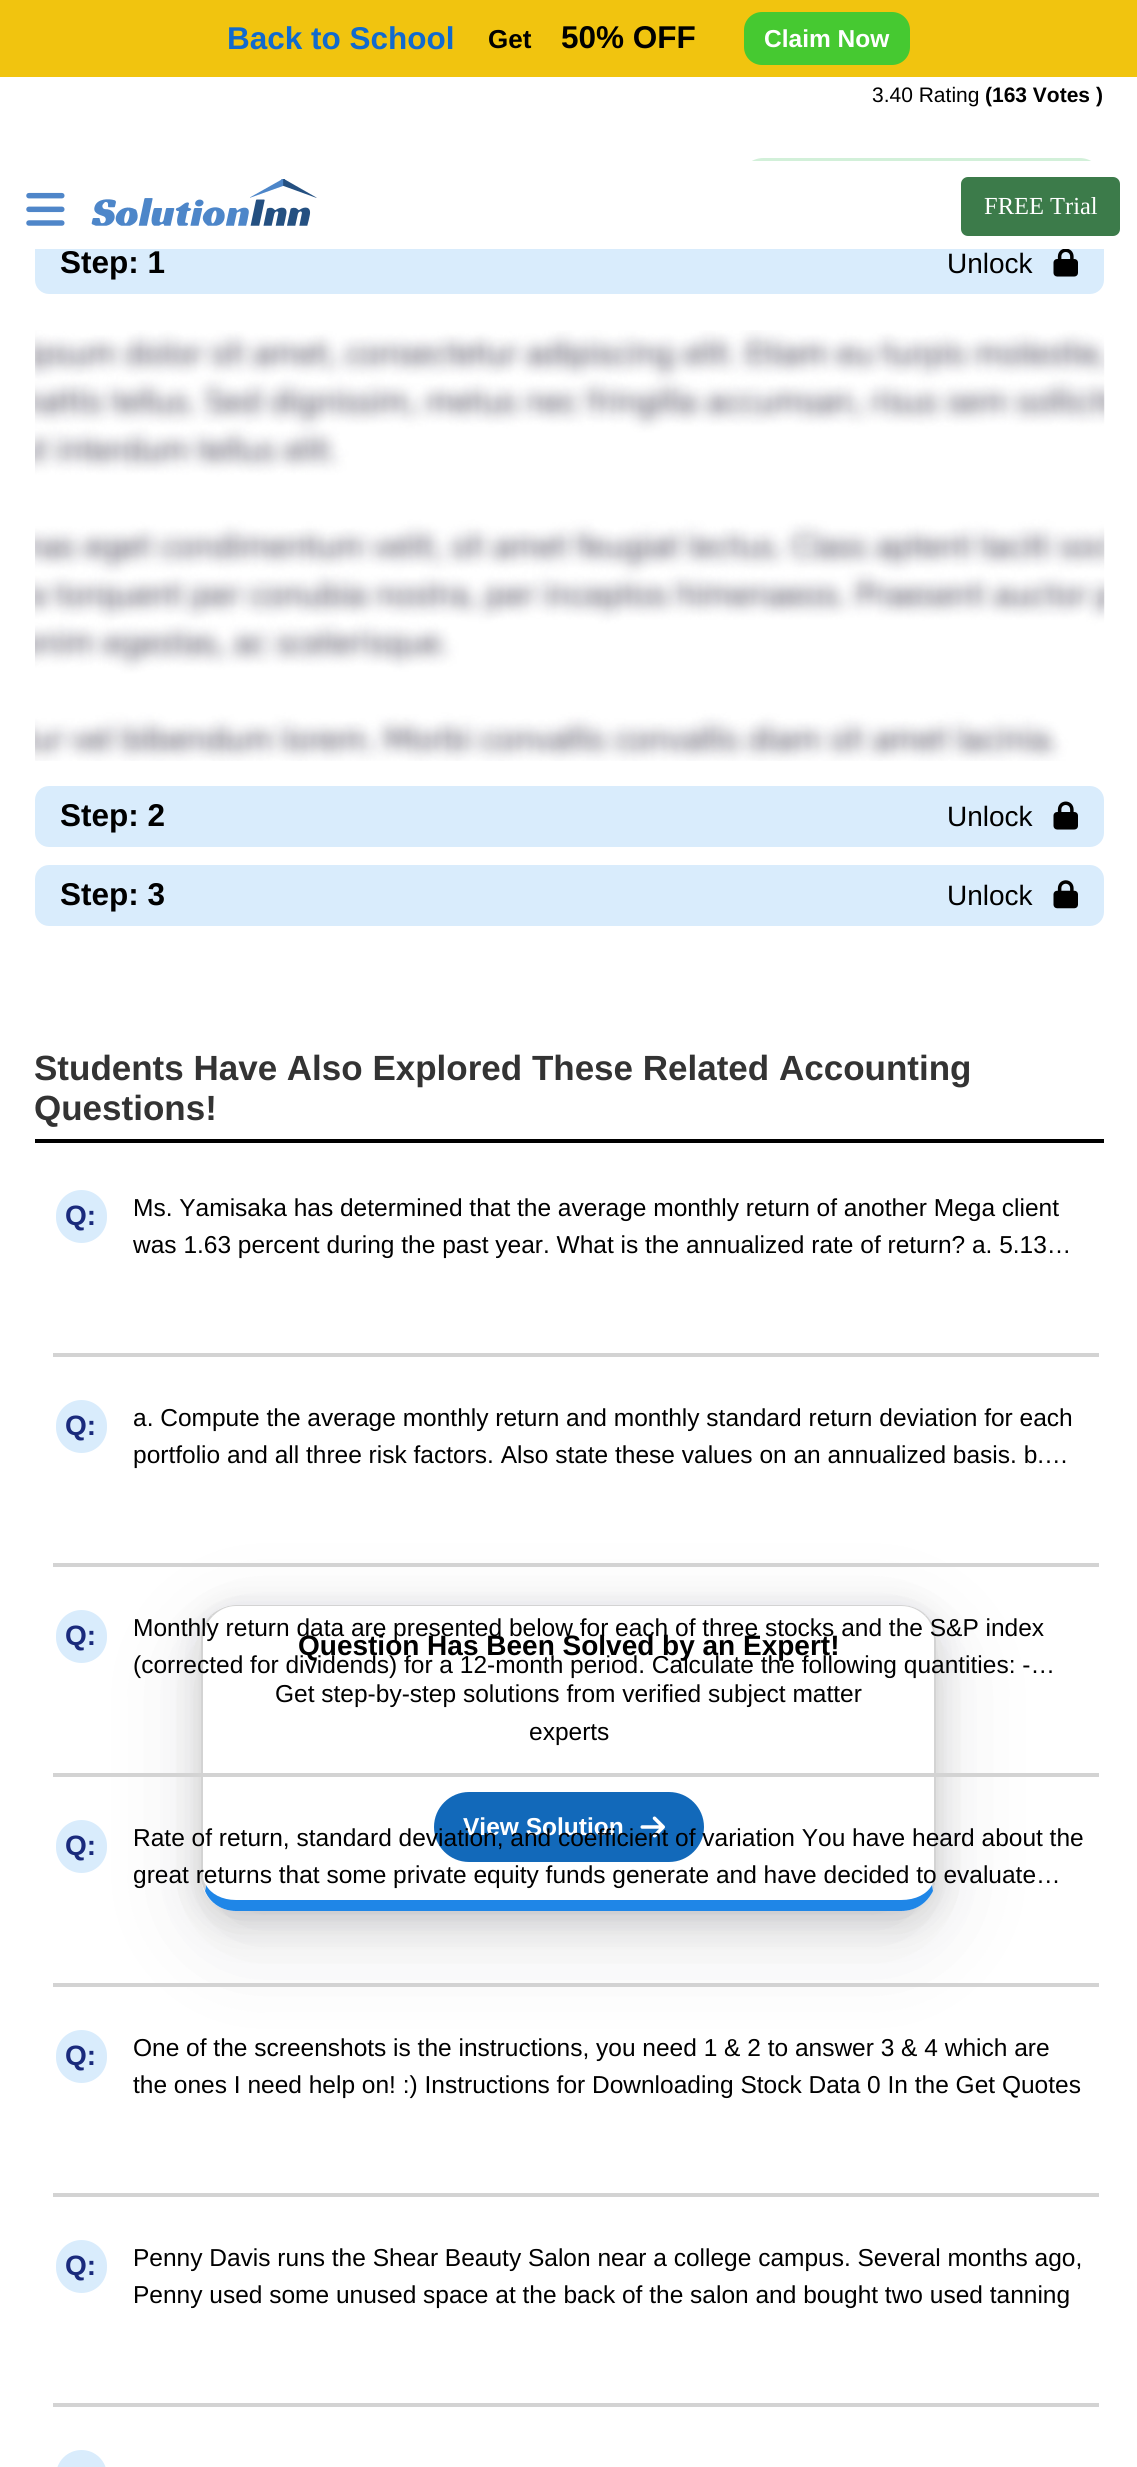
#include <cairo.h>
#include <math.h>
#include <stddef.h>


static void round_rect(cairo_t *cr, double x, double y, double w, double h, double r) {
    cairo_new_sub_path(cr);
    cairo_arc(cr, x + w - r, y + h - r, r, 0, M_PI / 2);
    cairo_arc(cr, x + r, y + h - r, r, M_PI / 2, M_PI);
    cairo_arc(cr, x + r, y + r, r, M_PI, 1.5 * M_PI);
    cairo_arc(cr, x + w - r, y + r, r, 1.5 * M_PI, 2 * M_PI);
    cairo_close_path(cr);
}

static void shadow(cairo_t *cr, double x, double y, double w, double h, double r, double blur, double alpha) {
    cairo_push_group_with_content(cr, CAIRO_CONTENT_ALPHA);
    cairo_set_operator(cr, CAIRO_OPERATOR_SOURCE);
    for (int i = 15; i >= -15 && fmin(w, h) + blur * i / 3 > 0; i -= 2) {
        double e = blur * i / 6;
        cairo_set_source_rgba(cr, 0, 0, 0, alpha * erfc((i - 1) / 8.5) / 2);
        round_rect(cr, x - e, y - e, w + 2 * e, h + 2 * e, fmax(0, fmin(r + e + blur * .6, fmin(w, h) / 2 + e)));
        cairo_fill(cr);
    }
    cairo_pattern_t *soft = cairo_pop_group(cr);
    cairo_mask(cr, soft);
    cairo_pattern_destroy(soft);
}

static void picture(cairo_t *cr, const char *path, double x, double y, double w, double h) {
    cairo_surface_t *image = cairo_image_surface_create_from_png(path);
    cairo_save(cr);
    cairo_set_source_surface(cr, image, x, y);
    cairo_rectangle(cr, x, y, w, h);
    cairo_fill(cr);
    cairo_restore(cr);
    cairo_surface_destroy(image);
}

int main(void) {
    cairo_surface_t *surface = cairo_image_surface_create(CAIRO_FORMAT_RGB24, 1137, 2467);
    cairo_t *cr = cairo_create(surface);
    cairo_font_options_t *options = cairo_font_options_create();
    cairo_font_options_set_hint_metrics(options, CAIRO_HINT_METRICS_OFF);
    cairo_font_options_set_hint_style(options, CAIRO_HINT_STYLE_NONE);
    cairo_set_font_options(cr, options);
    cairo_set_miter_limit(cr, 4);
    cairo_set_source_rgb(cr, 1, 1, 1);
    cairo_paint(cr);
    cairo_set_source_rgb(cr, 0.945, 0.769, 0.059);
    cairo_rectangle(cr, 0, 0, 1137, 77);
    cairo_fill(cr);
    cairo_select_font_face(cr, "Liberation Sans", CAIRO_FONT_SLANT_NORMAL, CAIRO_FONT_WEIGHT_BOLD);
    cairo_set_font_size(cr, 31.5);
    cairo_set_source_rgb(cr, 0.067, 0.416, 0.808);
    cairo_move_to(cr, 227, 49);
    cairo_show_text(cr, "Back to School");
    cairo_set_font_size(cr, 26);
    cairo_set_source_rgb(cr, 0, 0, 0);
    cairo_move_to(cr, 488, 48);
    cairo_show_text(cr, "Get");
    cairo_set_font_size(cr, 31.5);
    cairo_move_to(cr, 561, 48);
    cairo_show_text(cr, "50% OFF");
    cairo_set_source_rgb(cr, 0.275, 0.788, 0.192);
    round_rect(cr, 744, 12, 166, 53, 18);
    cairo_fill(cr);
    cairo_set_font_size(cr, 24.5);
    cairo_set_source_rgb(cr, 1, 1, 1);
    cairo_move_to(cr, 764, 47);
    cairo_show_text(cr, "Claim Now");
    cairo_select_font_face(cr, "Liberation Sans", CAIRO_FONT_SLANT_NORMAL, CAIRO_FONT_WEIGHT_NORMAL);
    cairo_set_font_size(cr, 21);
    cairo_set_source_rgb(cr, 0, 0, 0);
    cairo_move_to(cr, 872, 102);
    cairo_show_text(cr, "3.40 Rating");
    cairo_select_font_face(cr, "Liberation Sans", CAIRO_FONT_SLANT_NORMAL, CAIRO_FONT_WEIGHT_BOLD);
    cairo_move_to(cr, 985, 102);
    cairo_show_text(cr, "(163 Votes )");
    cairo_set_source_rgb(cr, 0.824, 0.941, 0.851);
    round_rect(cr, 739, 158, 365, 49, 24.5);
    cairo_fill(cr);
    cairo_set_source_rgb(cr, 0.851, 0.922, 0.988);
    round_rect(cr, 35, 233, 1069, 61, 14);
    cairo_fill(cr);
    cairo_set_font_size(cr, 31.5);
    cairo_set_source_rgb(cr, 0, 0, 0);
    cairo_move_to(cr, 60, 273);
    cairo_show_text(cr, "Step: 1");
    cairo_select_font_face(cr, "Liberation Sans", CAIRO_FONT_SLANT_NORMAL, CAIRO_FONT_WEIGHT_NORMAL);
    cairo_set_font_size(cr, 28);
    cairo_move_to(cr, 947, 273);
    cairo_show_text(cr, "Unlock");
    picture(cr, "img1.png", 1053, 249, 25, 28);
    picture(cr, "img2.png", 35, 330, 1070, 431);
    cairo_save(cr);
    cairo_set_fill_rule(cr, CAIRO_FILL_RULE_EVEN_ODD);
    cairo_new_path(cr);
    cairo_move_to(cr, 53, 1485);
    cairo_line_to(cr, 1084, 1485);
    cairo_line_to(cr, 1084, 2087);
    cairo_line_to(cr, 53, 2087);
    cairo_close_path(cr);
    cairo_move_to(cr, 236, 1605);
    cairo_line_to(cr, 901, 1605);
    cairo_curve_to(cr, 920.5, 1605, 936, 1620.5, 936, 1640);
    cairo_line_to(cr, 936, 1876);
    cairo_curve_to(cr, 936, 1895.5, 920.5, 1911, 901, 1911);
    cairo_line_to(cr, 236, 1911);
    cairo_curve_to(cr, 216.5, 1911, 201, 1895.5, 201, 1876);
    cairo_line_to(cr, 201, 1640);
    cairo_curve_to(cr, 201, 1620.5, 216.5, 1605, 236, 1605);
    cairo_close_path(cr);
    cairo_clip(cr);
    cairo_set_source_rgb(cr, 0.067, 0.067, 0.102);
    shadow(cr, 201, 1633, 735, 306, 35, 49, 0.1);
    cairo_restore(cr);
    cairo_save(cr);
    cairo_set_fill_rule(cr, CAIRO_FILL_RULE_EVEN_ODD);
    cairo_new_path(cr);
    cairo_move_to(cr, 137, 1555);
    cairo_line_to(cr, 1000, 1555);
    cairo_line_to(cr, 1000, 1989);
    cairo_line_to(cr, 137, 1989);
    cairo_close_path(cr);
    cairo_move_to(cr, 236, 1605);
    cairo_line_to(cr, 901, 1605);
    cairo_curve_to(cr, 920.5, 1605, 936, 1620.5, 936, 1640);
    cairo_line_to(cr, 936, 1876);
    cairo_curve_to(cr, 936, 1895.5, 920.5, 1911, 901, 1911);
    cairo_line_to(cr, 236, 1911);
    cairo_curve_to(cr, 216.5, 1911, 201, 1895.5, 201, 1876);
    cairo_line_to(cr, 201, 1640);
    cairo_curve_to(cr, 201, 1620.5, 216.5, 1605, 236, 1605);
    cairo_close_path(cr);
    cairo_clip(cr);
    cairo_set_source_rgb(cr, 0.067, 0.067, 0.102);
    shadow(cr, 201, 1619, 735, 306, 35, 21, 0.1);
    cairo_restore(cr);
    cairo_save(cr);
    cairo_set_fill_rule(cr, CAIRO_FILL_RULE_EVEN_ODD);
    cairo_new_path(cr);
    cairo_move_to(cr, 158, 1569);
    cairo_line_to(cr, 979, 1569);
    cairo_line_to(cr, 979, 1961);
    cairo_line_to(cr, 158, 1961);
    cairo_close_path(cr);
    cairo_move_to(cr, 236, 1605);
    cairo_line_to(cr, 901, 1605);
    cairo_curve_to(cr, 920.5, 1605, 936, 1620.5, 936, 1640);
    cairo_line_to(cr, 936, 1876);
    cairo_curve_to(cr, 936, 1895.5, 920.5, 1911, 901, 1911);
    cairo_line_to(cr, 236, 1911);
    cairo_curve_to(cr, 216.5, 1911, 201, 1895.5, 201, 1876);
    cairo_line_to(cr, 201, 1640);
    cairo_curve_to(cr, 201, 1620.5, 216.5, 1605, 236, 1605);
    cairo_close_path(cr);
    cairo_clip(cr);
    cairo_set_source_rgb(cr, 0.067, 0.067, 0.102);
    shadow(cr, 201, 1612, 735, 306, 35, 14, 0.1);
    cairo_restore(cr);
    cairo_set_source_rgb(cr, 0.827, 0.827, 0.827);
    cairo_new_path(cr);
    cairo_move_to(cr, 236, 1605);
    cairo_curve_to(cr, 227, 1605, 218, 1609, 211, 1615);
    cairo_line_to(cr, 213, 1616);
    cairo_curve_to(cr, 219, 1610, 227, 1606, 236, 1606);
    cairo_line_to(cr, 901, 1606);
    cairo_curve_to(cr, 911, 1606, 919, 1610, 925, 1616);
    cairo_line_to(cr, 926, 1615);
    cairo_curve_to(cr, 920, 1609, 911, 1605, 901, 1605);
    cairo_close_path(cr);
    cairo_fill(cr);
    cairo_new_path(cr);
    cairo_move_to(cr, 933, 1891);
    cairo_curve_to(cr, 935, 1886, 936, 1881, 936, 1876);
    cairo_line_to(cr, 936, 1640);
    cairo_curve_to(cr, 936, 1630, 932, 1621, 926, 1615);
    cairo_line_to(cr, 925, 1616);
    cairo_curve_to(cr, 931, 1622, 934, 1631, 934, 1640);
    cairo_line_to(cr, 934, 1876);
    cairo_curve_to(cr, 934, 1879, 933, 1882, 932, 1885);
    cairo_close_path(cr);
    cairo_fill(cr);
    cairo_set_source_rgb(cr, 0.122, 0.525, 0.906);
    cairo_new_path(cr);
    cairo_move_to(cr, 236, 1911);
    cairo_line_to(cr, 901, 1911);
    cairo_curve_to(cr, 916, 1911, 927, 1903, 933, 1891);
    cairo_line_to(cr, 932, 1885);
    cairo_curve_to(cr, 927, 1894, 916, 1900, 901, 1900);
    cairo_line_to(cr, 236, 1900);
    cairo_curve_to(cr, 222, 1900, 211, 1894, 206, 1885);
    cairo_line_to(cr, 205, 1891);
    cairo_curve_to(cr, 210, 1903, 222, 1911, 236, 1911);
    cairo_close_path(cr);
    cairo_fill(cr);
    cairo_set_source_rgb(cr, 0.827, 0.827, 0.827);
    cairo_new_path(cr);
    cairo_move_to(cr, 201, 1636);
    cairo_curve_to(cr, 202, 1627, 206, 1620, 211, 1615);
    cairo_line_to(cr, 213, 1616);
    cairo_curve_to(cr, 207, 1622, 203, 1631, 203, 1640);
    cairo_line_to(cr, 203, 1876);
    cairo_curve_to(cr, 203, 1879, 204, 1883, 206, 1885);
    cairo_line_to(cr, 205, 1891);
    cairo_curve_to(cr, 203, 1888, 202, 1884, 201, 1880);
    cairo_close_path(cr);
    cairo_fill(cr);
    cairo_select_font_face(cr, "Liberation Sans", CAIRO_FONT_SLANT_NORMAL, CAIRO_FONT_WEIGHT_BOLD);
    cairo_set_source_rgb(cr, 0, 0, 0);
    cairo_move_to(cr, 298, 1655);
    cairo_show_text(cr, "Question Has Been Solved by an Expert!");
    cairo_select_font_face(cr, "Liberation Sans", CAIRO_FONT_SLANT_NORMAL, CAIRO_FONT_WEIGHT_NORMAL);
    cairo_set_font_size(cr, 24.5);
    cairo_move_to(cr, 275, 1702);
    cairo_show_text(cr, "Get step-by-step solutions from verified subject matter");
    cairo_move_to(cr, 529, 1740);
    cairo_show_text(cr, "experts");
    cairo_set_source_rgb(cr, 0.071, 0.412, 0.729);
    round_rect(cr, 436, 1794, 266, 66, 33);
    cairo_fill_preserve(cr);
    cairo_set_line_width(cr, 4);
    cairo_stroke(cr);
    cairo_select_font_face(cr, "Liberation Sans", CAIRO_FONT_SLANT_NORMAL, CAIRO_FONT_WEIGHT_BOLD);
    cairo_set_source_rgb(cr, 1, 1, 1);
    cairo_move_to(cr, 463, 1835);
    cairo_show_text(cr, "View Solution");
    picture(cr, "img3.png", 640, 1816, 25, 22);
    cairo_set_source_rgb(cr, 0.851, 0.922, 0.988);
    round_rect(cr, 35, 786, 1069, 61, 14);
    cairo_fill(cr);
    cairo_set_font_size(cr, 31.5);
    cairo_set_source_rgb(cr, 0, 0, 0);
    cairo_move_to(cr, 60, 826);
    cairo_show_text(cr, "Step: 2");
    cairo_select_font_face(cr, "Liberation Sans", CAIRO_FONT_SLANT_NORMAL, CAIRO_FONT_WEIGHT_NORMAL);
    cairo_set_font_size(cr, 28);
    cairo_move_to(cr, 947, 826);
    cairo_show_text(cr, "Unlock");
    picture(cr, "img4.png", 1053, 801, 25, 29);
    cairo_set_source_rgb(cr, 0.851, 0.922, 0.988);
    round_rect(cr, 35, 865, 1069, 61, 14);
    cairo_fill(cr);
    cairo_select_font_face(cr, "Liberation Sans", CAIRO_FONT_SLANT_NORMAL, CAIRO_FONT_WEIGHT_BOLD);
    cairo_set_font_size(cr, 31.5);
    cairo_set_source_rgb(cr, 0, 0, 0);
    cairo_move_to(cr, 60, 905);
    cairo_show_text(cr, "Step: 3");
    cairo_select_font_face(cr, "Liberation Sans", CAIRO_FONT_SLANT_NORMAL, CAIRO_FONT_WEIGHT_NORMAL);
    cairo_set_font_size(cr, 28);
    cairo_move_to(cr, 947, 905);
    cairo_show_text(cr, "Unlock");
    picture(cr, "img5.png", 1053, 880, 25, 29);
    cairo_select_font_face(cr, "Liberation Sans", CAIRO_FONT_SLANT_NORMAL, CAIRO_FONT_WEIGHT_BOLD);
    cairo_set_font_size(cr, 35);
    cairo_set_source_rgb(cr, 0.2, 0.2, 0.2);
    cairo_move_to(cr, 34, 1080);
    cairo_show_text(cr, "Students Have Also Explored These Related Accounting");
    cairo_move_to(cr, 34, 1120);
    cairo_show_text(cr, "Questions!");
    cairo_set_source_rgb(cr, 0, 0, 0);
    cairo_rectangle(cr, 35, 1139, 1069, 4);
    cairo_fill(cr);
    cairo_set_source_rgb(cr, 0.851, 0.922, 0.988);
    round_rect(cr, 56, 1190, 51, 53, 25.5);
    cairo_fill(cr);
    cairo_set_font_size(cr, 28);
    cairo_set_source_rgb(cr, 0.102, 0.165, 0.486);
    cairo_move_to(cr, 65, 1225);
    cairo_show_text(cr, "Q:");
    cairo_select_font_face(cr, "Liberation Sans", CAIRO_FONT_SLANT_NORMAL, CAIRO_FONT_WEIGHT_NORMAL);
    cairo_set_font_size(cr, 24.5);
    cairo_set_source_rgb(cr, 0, 0, 0);
    cairo_move_to(cr, 133, 1216);
    cairo_show_text(cr, "Ms. Yamisaka has determined that the average monthly return of another Mega client");
    cairo_move_to(cr, 133, 1253);
    cairo_show_text(cr, "was 1.63 percent during the past year. What is the annualized rate of return? a. 5.13…");
    cairo_set_source_rgb(cr, 0.827, 0.827, 0.827);
    cairo_rectangle(cr, 53, 1353, 1046, 4);
    cairo_fill(cr);
    cairo_set_source_rgb(cr, 0.851, 0.922, 0.988);
    round_rect(cr, 56, 1400, 51, 53, 25.5);
    cairo_fill(cr);
    cairo_select_font_face(cr, "Liberation Sans", CAIRO_FONT_SLANT_NORMAL, CAIRO_FONT_WEIGHT_BOLD);
    cairo_set_font_size(cr, 28);
    cairo_set_source_rgb(cr, 0.102, 0.165, 0.486);
    cairo_move_to(cr, 65, 1435);
    cairo_show_text(cr, "Q:");
    cairo_select_font_face(cr, "Liberation Sans", CAIRO_FONT_SLANT_NORMAL, CAIRO_FONT_WEIGHT_NORMAL);
    cairo_set_font_size(cr, 24.5);
    cairo_set_source_rgb(cr, 0, 0, 0);
    cairo_move_to(cr, 133, 1426);
    cairo_show_text(cr, "a. Compute the average monthly return and monthly standard return deviation for each");
    cairo_move_to(cr, 133, 1463);
    cairo_show_text(cr, "portfolio and all three risk factors. Also state these values on an annualized basis. b.…");
    cairo_set_source_rgb(cr, 0.827, 0.827, 0.827);
    cairo_rectangle(cr, 53, 1563, 1046, 4);
    cairo_fill(cr);
    cairo_set_source_rgb(cr, 0.851, 0.922, 0.988);
    round_rect(cr, 56, 1610, 51, 53, 25.5);
    cairo_fill(cr);
    cairo_select_font_face(cr, "Liberation Sans", CAIRO_FONT_SLANT_NORMAL, CAIRO_FONT_WEIGHT_BOLD);
    cairo_set_font_size(cr, 28);
    cairo_set_source_rgb(cr, 0.102, 0.165, 0.486);
    cairo_move_to(cr, 65, 1645);
    cairo_show_text(cr, "Q:");
    cairo_select_font_face(cr, "Liberation Sans", CAIRO_FONT_SLANT_NORMAL, CAIRO_FONT_WEIGHT_NORMAL);
    cairo_set_font_size(cr, 24.5);
    cairo_set_source_rgb(cr, 0, 0, 0);
    cairo_move_to(cr, 133, 1636);
    cairo_show_text(cr, "Monthly return data are presented below for each of three stocks and the S&P index");
    cairo_move_to(cr, 133, 1673);
    cairo_show_text(cr, "(corrected for dividends) for a 12-month period. Calculate the following quantities: -…");
    cairo_set_source_rgb(cr, 0.827, 0.827, 0.827);
    cairo_rectangle(cr, 53, 1773, 1046, 4);
    cairo_fill(cr);
    cairo_set_source_rgb(cr, 0.851, 0.922, 0.988);
    round_rect(cr, 56, 1820, 51, 53, 25.5);
    cairo_fill(cr);
    cairo_select_font_face(cr, "Liberation Sans", CAIRO_FONT_SLANT_NORMAL, CAIRO_FONT_WEIGHT_BOLD);
    cairo_set_font_size(cr, 28);
    cairo_set_source_rgb(cr, 0.102, 0.165, 0.486);
    cairo_move_to(cr, 65, 1855);
    cairo_show_text(cr, "Q:");
    cairo_select_font_face(cr, "Liberation Sans", CAIRO_FONT_SLANT_NORMAL, CAIRO_FONT_WEIGHT_NORMAL);
    cairo_set_font_size(cr, 24.5);
    cairo_set_source_rgb(cr, 0, 0, 0);
    cairo_move_to(cr, 133, 1846);
    cairo_show_text(cr, "Rate of return, standard deviation, and coefficient of variation You have heard about the");
    cairo_move_to(cr, 133, 1883);
    cairo_show_text(cr, "great returns that some private equity funds generate and have decided to evaluate…");
    cairo_set_source_rgb(cr, 0.827, 0.827, 0.827);
    cairo_rectangle(cr, 53, 1983, 1046, 4);
    cairo_fill(cr);
    cairo_set_source_rgb(cr, 0.851, 0.922, 0.988);
    round_rect(cr, 56, 2030, 51, 53, 25.5);
    cairo_fill(cr);
    cairo_select_font_face(cr, "Liberation Sans", CAIRO_FONT_SLANT_NORMAL, CAIRO_FONT_WEIGHT_BOLD);
    cairo_set_font_size(cr, 28);
    cairo_set_source_rgb(cr, 0.102, 0.165, 0.486);
    cairo_move_to(cr, 65, 2065);
    cairo_show_text(cr, "Q:");
    cairo_select_font_face(cr, "Liberation Sans", CAIRO_FONT_SLANT_NORMAL, CAIRO_FONT_WEIGHT_NORMAL);
    cairo_set_font_size(cr, 24.5);
    cairo_set_source_rgb(cr, 0, 0, 0);
    cairo_move_to(cr, 133, 2056);
    cairo_show_text(cr, "One of the screenshots is the instructions, you need 1 & 2 to answer 3 & 4 which are");
    cairo_move_to(cr, 133, 2093);
    cairo_show_text(cr, "the ones I need help on! :) Instructions for Downloading Stock Data 0 In the Get Quotes");
    cairo_set_source_rgb(cr, 0.827, 0.827, 0.827);
    cairo_rectangle(cr, 53, 2193, 1046, 4);
    cairo_fill(cr);
    cairo_set_source_rgb(cr, 0.851, 0.922, 0.988);
    round_rect(cr, 56, 2240, 51, 53, 25.5);
    cairo_fill(cr);
    cairo_select_font_face(cr, "Liberation Sans", CAIRO_FONT_SLANT_NORMAL, CAIRO_FONT_WEIGHT_BOLD);
    cairo_set_font_size(cr, 28);
    cairo_set_source_rgb(cr, 0.102, 0.165, 0.486);
    cairo_move_to(cr, 65, 2275);
    cairo_show_text(cr, "Q:");
    cairo_select_font_face(cr, "Liberation Sans", CAIRO_FONT_SLANT_NORMAL, CAIRO_FONT_WEIGHT_NORMAL);
    cairo_set_font_size(cr, 24.5);
    cairo_set_source_rgb(cr, 0, 0, 0);
    cairo_move_to(cr, 133, 2266);
    cairo_show_text(cr, "Penny Davis runs the Shear Beauty Salon near a college campus. Several months ago,");
    cairo_move_to(cr, 133, 2303);
    cairo_show_text(cr, "Penny used some unused space at the back of the salon and bought two used tanning");
    cairo_set_source_rgb(cr, 0.827, 0.827, 0.827);
    cairo_rectangle(cr, 53, 2403, 1046, 4);
    cairo_fill(cr);
    cairo_set_source_rgb(cr, 0.851, 0.922, 0.988);
    round_rect(cr, 56, 2450, 51, 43, 25.5);
    cairo_fill(cr);
    cairo_set_source_rgb(cr, 1, 1, 1);
    cairo_rectangle(cr, 35, 161, 1069, 88);
    cairo_fill(cr);
    picture(cr, "img6.png", 26, 192, 39, 34);
    picture(cr, "img7.png", 91, 179, 226, 47);
    cairo_set_source_rgb(cr, 0.235, 0.482, 0.29);
    round_rect(cr, 961, 177, 159, 59, 7);
    cairo_fill(cr);
    cairo_select_font_face(cr, "Liberation Serif", CAIRO_FONT_SLANT_NORMAL, CAIRO_FONT_WEIGHT_NORMAL);
    cairo_set_source_rgb(cr, 1, 1, 1);
    cairo_move_to(cr, 984, 214);
    cairo_show_text(cr, "FREE Trial");
    cairo_surface_write_to_png(surface, "page.png");
    cairo_font_options_destroy(options);
    cairo_destroy(cr);
    cairo_surface_destroy(surface);
    return 0;
}
